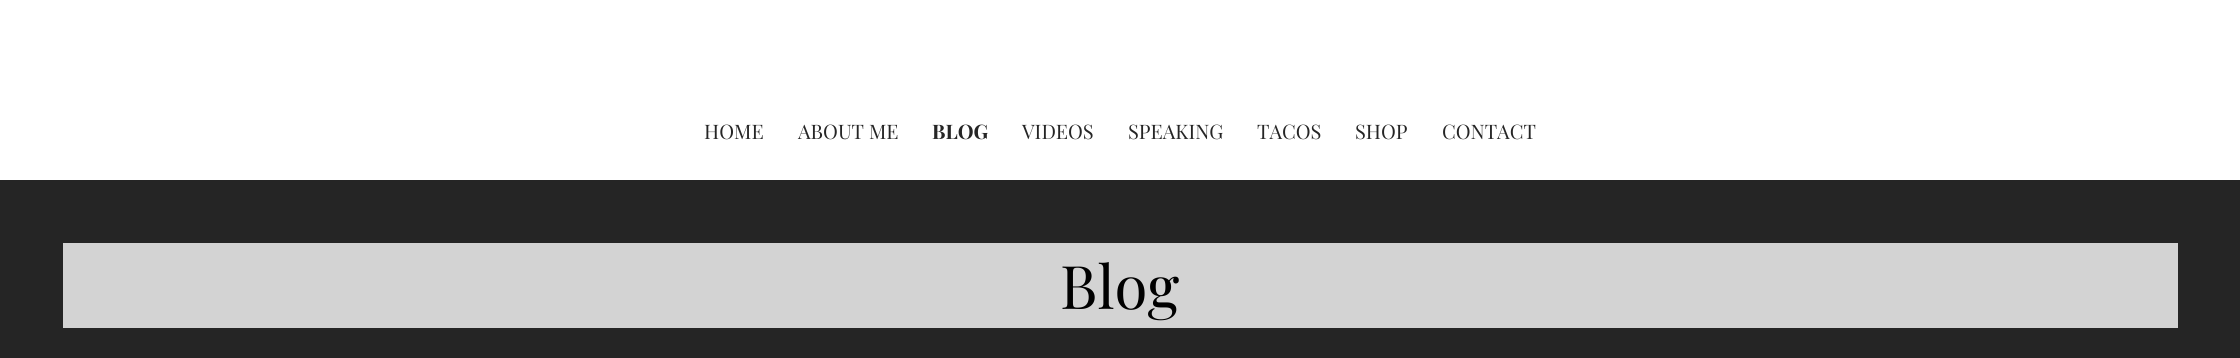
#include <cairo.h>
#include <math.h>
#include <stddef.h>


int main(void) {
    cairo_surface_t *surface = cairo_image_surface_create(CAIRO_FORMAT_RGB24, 2240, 358);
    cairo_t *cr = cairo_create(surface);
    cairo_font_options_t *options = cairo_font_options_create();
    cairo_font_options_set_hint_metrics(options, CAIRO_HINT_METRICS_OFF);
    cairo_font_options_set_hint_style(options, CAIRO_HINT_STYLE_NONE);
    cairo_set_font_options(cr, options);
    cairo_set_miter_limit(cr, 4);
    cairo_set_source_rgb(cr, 1, 1, 1);
    cairo_paint(cr);
    cairo_select_font_face(cr, "Playfair Display", CAIRO_FONT_SLANT_NORMAL, CAIRO_FONT_WEIGHT_NORMAL);
    cairo_set_font_size(cr, 20);
    cairo_set_source_rgb(cr, 0.145, 0.145, 0.145);
    cairo_move_to(cr, 704, 139);
    cairo_show_text(cr, "HOME");
    cairo_move_to(cr, 798, 139);
    cairo_show_text(cr, "ABOUT ME");
    cairo_select_font_face(cr, "Playfair Display", CAIRO_FONT_SLANT_NORMAL, CAIRO_FONT_WEIGHT_BOLD);
    cairo_move_to(cr, 932, 139);
    cairo_show_text(cr, "BLOG");
    cairo_select_font_face(cr, "Playfair Display", CAIRO_FONT_SLANT_NORMAL, CAIRO_FONT_WEIGHT_NORMAL);
    cairo_move_to(cr, 1022, 139);
    cairo_show_text(cr, "VIDEOS");
    cairo_move_to(cr, 1128, 139);
    cairo_show_text(cr, "SPEAKING");
    cairo_move_to(cr, 1257, 139);
    cairo_show_text(cr, "TACOS");
    cairo_move_to(cr, 1355, 139);
    cairo_show_text(cr, "SHOP");
    cairo_move_to(cr, 1442, 139);
    cairo_show_text(cr, "CONTACT");
    cairo_rectangle(cr, 0, 180, 2240, 178);
    cairo_fill(cr);
    cairo_set_source_rgb(cr, 0.827, 0.827, 0.827);
    cairo_rectangle(cr, 63, 243, 2115, 85);
    cairo_fill(cr);
    cairo_set_font_size(cr, 60);
    cairo_set_source_rgb(cr, 0, 0, 0);
    cairo_move_to(cr, 1060, 309);
    cairo_show_text(cr, "Blog");
    cairo_surface_write_to_png(surface, "page.png");
    cairo_font_options_destroy(options);
    cairo_destroy(cr);
    cairo_surface_destroy(surface);
    return 0;
}
